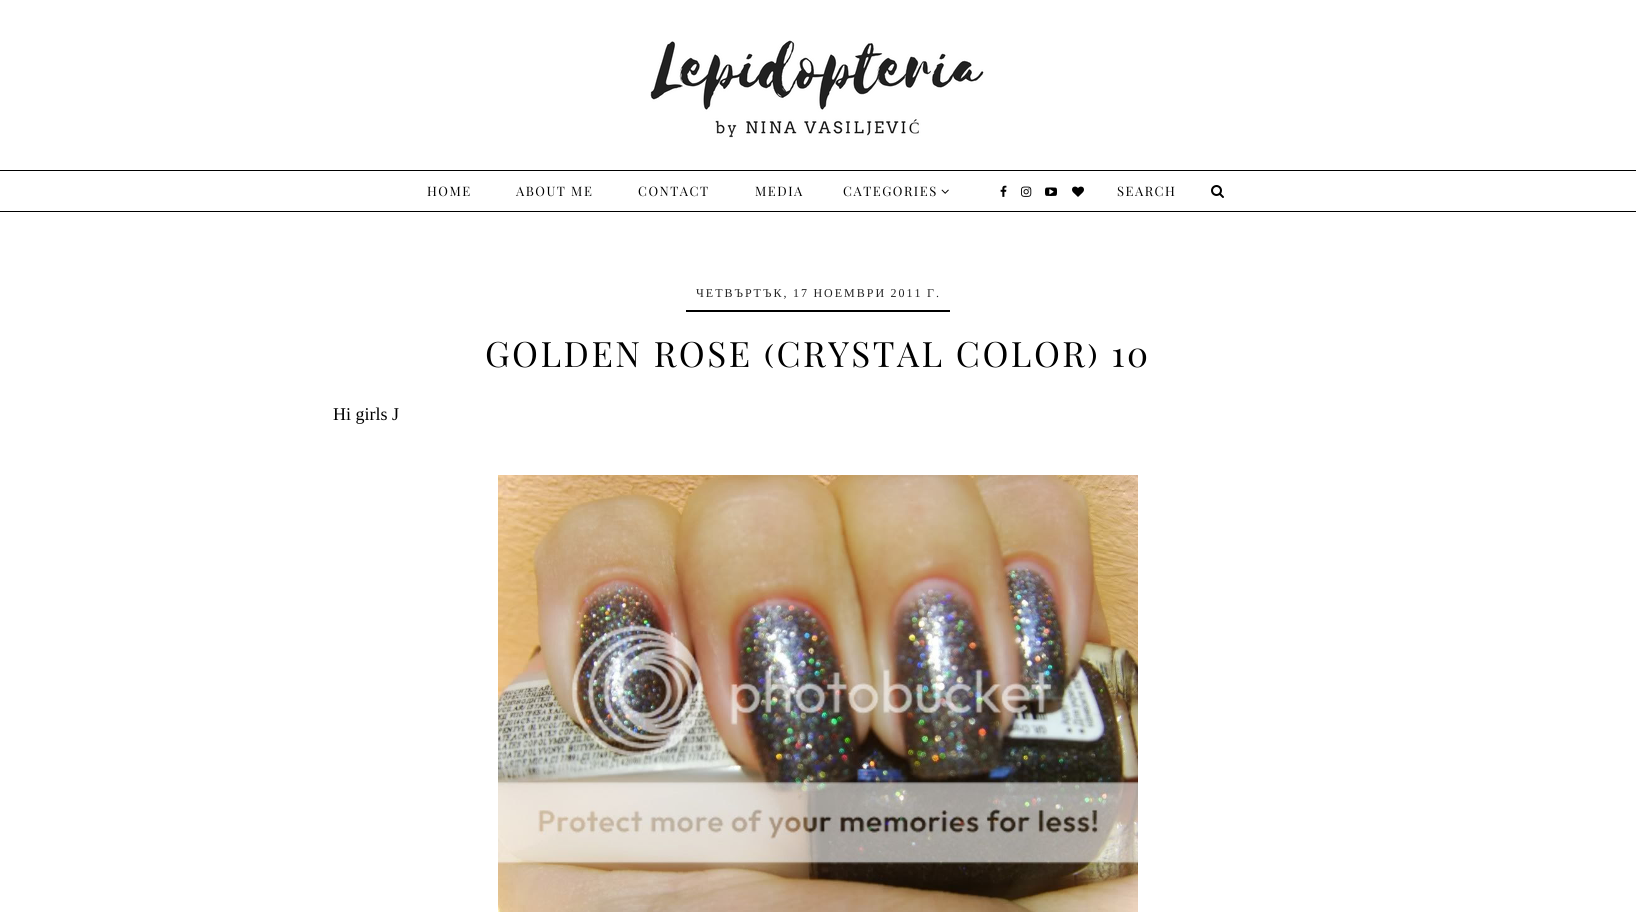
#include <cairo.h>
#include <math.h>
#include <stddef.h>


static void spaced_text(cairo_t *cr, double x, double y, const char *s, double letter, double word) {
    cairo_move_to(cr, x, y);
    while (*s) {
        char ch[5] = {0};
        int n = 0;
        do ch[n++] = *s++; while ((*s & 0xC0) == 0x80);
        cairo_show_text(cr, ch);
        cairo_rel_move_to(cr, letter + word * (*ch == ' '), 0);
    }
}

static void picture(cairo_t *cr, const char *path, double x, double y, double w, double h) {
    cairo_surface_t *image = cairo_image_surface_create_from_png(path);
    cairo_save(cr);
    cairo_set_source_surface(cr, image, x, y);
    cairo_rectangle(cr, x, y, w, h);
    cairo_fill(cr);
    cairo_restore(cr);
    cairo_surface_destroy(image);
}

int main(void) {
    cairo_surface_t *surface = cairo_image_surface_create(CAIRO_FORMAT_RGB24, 1636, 912);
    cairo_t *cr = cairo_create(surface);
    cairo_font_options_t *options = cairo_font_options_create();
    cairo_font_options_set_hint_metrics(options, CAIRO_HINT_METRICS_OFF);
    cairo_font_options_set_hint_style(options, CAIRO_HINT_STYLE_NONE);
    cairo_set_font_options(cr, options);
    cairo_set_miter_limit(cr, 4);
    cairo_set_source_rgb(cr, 1, 1, 1);
    cairo_paint(cr);
    picture(cr, "img1.png", 650, 40, 334, 98);
    cairo_set_source_rgb(cr, 0, 0, 0);
    cairo_rectangle(cr, 0, 170, 1636, 1);
    cairo_fill(cr);
    cairo_rectangle(cr, 0, 211, 1636, 1);
    cairo_fill(cr);
    cairo_select_font_face(cr, "Playfair Display", CAIRO_FONT_SLANT_NORMAL, CAIRO_FONT_WEIGHT_NORMAL);
    cairo_set_font_size(cr, 13);
    spaced_text(cr, 427, 196, "HOME", 1.5, 0);
    spaced_text(cr, 516, 196, "ABOUT ME", 1.5, 0);
    spaced_text(cr, 638, 196, "CONTACT", 1.5, 0);
    spaced_text(cr, 755, 196, "MEDIA", 1.5, 0);
    spaced_text(cr, 843, 196, "CATEGORIES", 1.5, 0);
    picture(cr, "img2.png", 941, 189, 8, 5);
    picture(cr, "img3.png", 1000, 185, 7, 12);
    picture(cr, "img4.png", 1021, 186, 11, 11);
    picture(cr, "img5.png", 1045, 187, 12, 9);
    picture(cr, "img6.png", 1072, 186, 12, 11);
    spaced_text(cr, 1117, 196, "SEARCH", 1.5, 0);
    picture(cr, "img7.png", 1211, 185, 13, 13);
    cairo_select_font_face(cr, "Liberation Serif", CAIRO_FONT_SLANT_NORMAL, CAIRO_FONT_WEIGHT_NORMAL);
    cairo_set_font_size(cr, 12);
    cairo_set_source_rgb(cr, 0.133, 0.133, 0.133);
    spaced_text(cr, 696, 297, "ЧЕТВЪРТЪК, 17 НОЕМВРИ 2011 Г.", 2, -0.5);
    cairo_set_source_rgb(cr, 0, 0, 0);
    cairo_rectangle(cr, 686, 310, 264, 2);
    cairo_fill(cr);
    cairo_select_font_face(cr, "Playfair Display SC", CAIRO_FONT_SLANT_NORMAL, CAIRO_FONT_WEIGHT_NORMAL);
    cairo_set_font_size(cr, 35);
    spaced_text(cr, 485, 367, "GOLDEN ROSE (CRYSTAL COLOR) 10", 2.5, 0);
    cairo_select_font_face(cr, "Liberation Serif", CAIRO_FONT_SLANT_NORMAL, CAIRO_FONT_WEIGHT_NORMAL);
    cairo_set_font_size(cr, 18);
    cairo_move_to(cr, 333, 420);
    cairo_show_text(cr, "Hi girls J");
    picture(cr, "img8.png", 498, 475, 640, 437);
    cairo_surface_write_to_png(surface, "page.png");
    cairo_font_options_destroy(options);
    cairo_destroy(cr);
    cairo_surface_destroy(surface);
    return 0;
}
